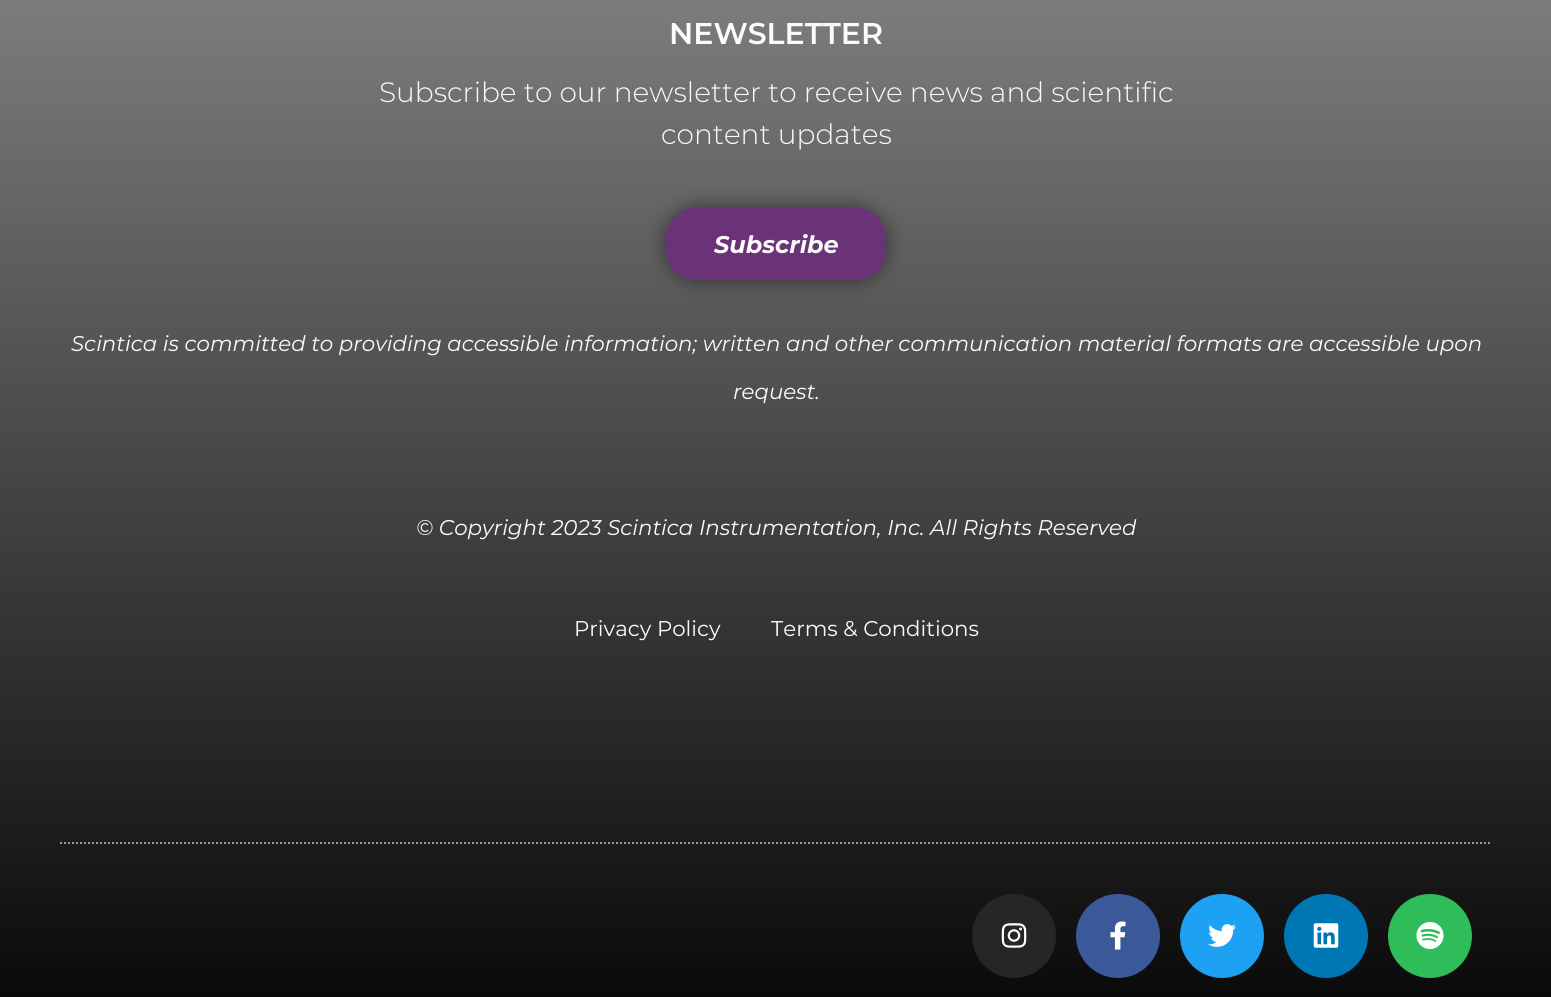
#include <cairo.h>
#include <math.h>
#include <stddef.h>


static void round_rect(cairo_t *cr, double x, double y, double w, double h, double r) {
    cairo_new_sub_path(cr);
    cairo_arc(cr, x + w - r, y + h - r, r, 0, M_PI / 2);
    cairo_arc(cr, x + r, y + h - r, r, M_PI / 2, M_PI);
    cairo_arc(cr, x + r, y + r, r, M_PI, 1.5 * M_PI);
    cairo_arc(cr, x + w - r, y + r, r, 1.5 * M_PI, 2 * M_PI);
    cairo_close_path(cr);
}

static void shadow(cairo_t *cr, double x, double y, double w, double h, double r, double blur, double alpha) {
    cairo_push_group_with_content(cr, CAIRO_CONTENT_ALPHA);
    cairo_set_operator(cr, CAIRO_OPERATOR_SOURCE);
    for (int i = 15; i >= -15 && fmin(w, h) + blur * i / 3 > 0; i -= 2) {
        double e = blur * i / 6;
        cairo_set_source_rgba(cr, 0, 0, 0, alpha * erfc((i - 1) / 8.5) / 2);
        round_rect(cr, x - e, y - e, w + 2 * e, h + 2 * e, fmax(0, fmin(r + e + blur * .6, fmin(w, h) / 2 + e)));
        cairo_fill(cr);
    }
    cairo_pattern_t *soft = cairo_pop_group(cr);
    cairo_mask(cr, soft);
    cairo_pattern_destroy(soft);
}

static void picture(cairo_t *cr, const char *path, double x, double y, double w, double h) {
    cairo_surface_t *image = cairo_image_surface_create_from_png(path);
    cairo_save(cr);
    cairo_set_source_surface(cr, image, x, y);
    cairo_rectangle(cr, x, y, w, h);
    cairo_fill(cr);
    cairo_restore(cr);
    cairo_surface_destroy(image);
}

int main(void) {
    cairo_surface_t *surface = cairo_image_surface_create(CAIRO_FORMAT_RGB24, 1551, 997);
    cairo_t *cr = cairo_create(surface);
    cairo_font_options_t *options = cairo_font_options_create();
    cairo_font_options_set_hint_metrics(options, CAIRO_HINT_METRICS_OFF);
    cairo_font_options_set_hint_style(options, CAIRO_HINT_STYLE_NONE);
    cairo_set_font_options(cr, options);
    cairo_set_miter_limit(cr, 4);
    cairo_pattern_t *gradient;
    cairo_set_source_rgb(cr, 1, 1, 1);
    cairo_paint(cr);
    gradient = cairo_pattern_create_linear(776, 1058, 776, -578);
    cairo_pattern_add_color_stop_rgba(gradient, 0, 0.012, 0.012, 0.012, 1);
    cairo_pattern_add_color_stop_rgba(gradient, 1, 0.753, 0.741, 0.741, 1);
    cairo_set_source(cr, gradient);
    cairo_pattern_destroy(gradient);
    cairo_rectangle(cr, 0, 0, 1551, 997);
    cairo_fill(cr);
    cairo_select_font_face(cr, "Montserrat SemiBold", CAIRO_FONT_SLANT_NORMAL, CAIRO_FONT_WEIGHT_NORMAL);
    cairo_set_font_size(cr, 30);
    cairo_set_source_rgb(cr, 0.988, 0.984, 0.988);
    cairo_move_to(cr, 669, 44);
    cairo_show_text(cr, "NEWSLETTER");
    cairo_select_font_face(cr, "Montserrat Light", CAIRO_FONT_SLANT_NORMAL, CAIRO_FONT_WEIGHT_NORMAL);
    cairo_set_font_size(cr, 28);
    cairo_move_to(cr, 379, 102);
    cairo_show_text(cr, "Subscribe to our newsletter to receive news and scientific");
    cairo_move_to(cr, 661, 144);
    cairo_show_text(cr, "content updates");
    cairo_set_source_rgb(cr, 0, 0, 0);
    shadow(cr, 666, 208, 220, 72, 30, 10, 0.5);
    cairo_set_source_rgb(cr, 0.416, 0.2, 0.471);
    round_rect(cr, 666, 208, 220, 72, 30);
    cairo_fill(cr);
    cairo_select_font_face(cr, "Montserrat", CAIRO_FONT_SLANT_ITALIC, CAIRO_FONT_WEIGHT_BOLD);
    cairo_set_font_size(cr, 24);
    cairo_set_source_rgb(cr, 0.988, 0.984, 0.988);
    cairo_move_to(cr, 714, 253);
    cairo_show_text(cr, "Subscribe");
    cairo_select_font_face(cr, "Montserrat", CAIRO_FONT_SLANT_ITALIC, CAIRO_FONT_WEIGHT_NORMAL);
    cairo_set_font_size(cr, 21.33);
    cairo_move_to(cr, 71, 351);
    cairo_show_text(cr, "Scintica is committed to providing accessible information; written and other communication material formats are accessible upon");
    cairo_move_to(cr, 733, 399);
    cairo_show_text(cr, "request.");
    cairo_move_to(cr, 416, 535);
    cairo_show_text(cr, "© Copyright 2023 Scintica Instrumentation, Inc. All Rights Reserved");
    cairo_select_font_face(cr, "Montserrat", CAIRO_FONT_SLANT_NORMAL, CAIRO_FONT_WEIGHT_NORMAL);
    cairo_move_to(cr, 574, 636);
    cairo_show_text(cr, "Privacy Policy");
    cairo_move_to(cr, 771, 636);
    cairo_show_text(cr, "Terms & Conditions");
    cairo_new_path(cr);
    cairo_move_to(cr, 60, 843);
    cairo_line_to(cr, 1492, 843);
    cairo_set_source_rgb(cr, 0.608, 0.608, 0.608);
    cairo_set_dash(cr, (double[]){2, 2}, 2, 0);
    cairo_stroke(cr);
    cairo_set_source_rgb(cr, 0.149, 0.149, 0.149);
    cairo_arc(cr, 1014, 936, 42, 0, 2 * M_PI);
    cairo_fill(cr);
    picture(cr, "img1.png", 1001, 923, 26, 25);
    cairo_set_source_rgb(cr, 0.231, 0.349, 0.596);
    cairo_arc(cr, 1118, 936, 42, 0, 2 * M_PI);
    cairo_fill(cr);
    picture(cr, "img2.png", 1110, 921, 16, 29);
    cairo_set_source_rgb(cr, 0.114, 0.631, 0.949);
    cairo_arc(cr, 1222, 936, 42, 0, 2 * M_PI);
    cairo_fill(cr);
    picture(cr, "img3.png", 1208, 924, 28, 23);
    cairo_set_source_rgb(cr, 0, 0.467, 0.71);
    cairo_arc(cr, 1326, 936, 42, 0, 2 * M_PI);
    cairo_fill(cr);
    picture(cr, "img4.png", 1313, 923, 26, 25);
    cairo_set_source_rgb(cr, 0.18, 0.741, 0.349);
    cairo_arc(cr, 1430, 936, 42, 0, 2 * M_PI);
    cairo_fill(cr);
    picture(cr, "img5.png", 1416, 921, 28, 29);
    cairo_surface_write_to_png(surface, "page.png");
    cairo_font_options_destroy(options);
    cairo_destroy(cr);
    cairo_surface_destroy(surface);
    return 0;
}
